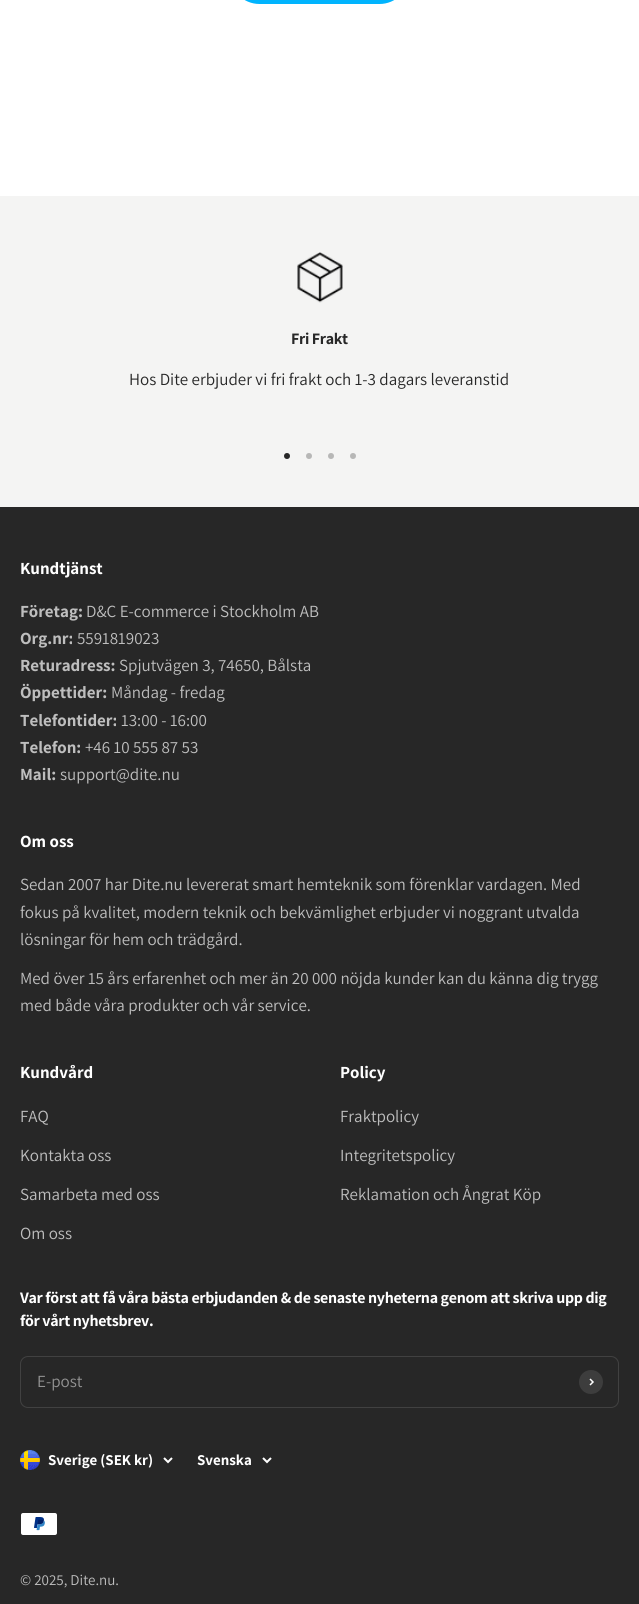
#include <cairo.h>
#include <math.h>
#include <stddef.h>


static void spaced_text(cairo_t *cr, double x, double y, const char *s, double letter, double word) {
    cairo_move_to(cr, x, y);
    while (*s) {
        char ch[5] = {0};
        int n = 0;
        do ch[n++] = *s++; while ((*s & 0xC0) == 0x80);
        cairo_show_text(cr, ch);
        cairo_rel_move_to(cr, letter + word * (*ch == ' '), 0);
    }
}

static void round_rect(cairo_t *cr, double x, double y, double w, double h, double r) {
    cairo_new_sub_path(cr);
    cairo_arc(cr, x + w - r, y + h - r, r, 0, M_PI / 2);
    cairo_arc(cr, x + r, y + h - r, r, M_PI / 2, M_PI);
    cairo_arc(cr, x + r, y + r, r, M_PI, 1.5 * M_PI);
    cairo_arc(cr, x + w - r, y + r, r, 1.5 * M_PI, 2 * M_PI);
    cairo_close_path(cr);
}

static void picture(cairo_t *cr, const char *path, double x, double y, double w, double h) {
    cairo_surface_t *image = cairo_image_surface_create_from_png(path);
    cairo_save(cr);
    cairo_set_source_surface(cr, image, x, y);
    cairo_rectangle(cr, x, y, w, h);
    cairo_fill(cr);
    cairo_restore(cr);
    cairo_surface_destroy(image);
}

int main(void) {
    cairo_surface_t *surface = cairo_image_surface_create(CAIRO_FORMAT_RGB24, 639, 1604);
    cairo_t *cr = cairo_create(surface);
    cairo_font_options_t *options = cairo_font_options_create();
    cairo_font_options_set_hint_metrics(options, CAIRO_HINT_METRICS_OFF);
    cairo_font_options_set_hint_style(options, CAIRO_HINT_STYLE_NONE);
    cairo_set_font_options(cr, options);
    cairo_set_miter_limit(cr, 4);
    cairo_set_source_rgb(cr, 1, 1, 1);
    cairo_paint(cr);
    cairo_set_source_rgb(cr, 0, 0.706, 0.996);
    round_rect(cr, 230, -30, 179, 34, 29.5);
    cairo_fill(cr);
    cairo_set_source_rgb(cr, 0.957, 0.957, 0.953);
    cairo_rectangle(cr, 0, 196, 639, 311);
    cairo_fill(cr);
    picture(cr, "img1.png", 297, 252, 46, 51);
    cairo_select_font_face(cr, "Assistant", CAIRO_FONT_SLANT_NORMAL, CAIRO_FONT_WEIGHT_BOLD);
    cairo_set_font_size(cr, 16);
    cairo_set_source_rgb(cr, 0.153, 0.153, 0.153);
    spaced_text(cr, 291, 344, "Fri Frakt", -0.32, 0);
    cairo_select_font_face(cr, "Assistant", CAIRO_FONT_SLANT_NORMAL, CAIRO_FONT_WEIGHT_NORMAL);
    cairo_set_font_size(cr, 17);
    cairo_move_to(cr, 129, 385);
    cairo_show_text(cr, "Hos Dite erbjuder vi fri frakt och 1-3 dagars leveranstid");
    cairo_new_path(cr);
    cairo_arc(cr, 287, 456, 3, 0, 2 * M_PI);
    cairo_fill(cr);
    cairo_set_source_rgb(cr, 0.718, 0.718, 0.714);
    cairo_arc(cr, 309, 456, 3, 0, 2 * M_PI);
    cairo_fill(cr);
    cairo_arc(cr, 331, 456, 3, 0, 2 * M_PI);
    cairo_fill(cr);
    cairo_arc(cr, 353, 456, 3, 0, 2 * M_PI);
    cairo_fill(cr);
    cairo_set_source_rgb(cr, 0.153, 0.153, 0.153);
    cairo_rectangle(cr, 0, 507, 639, 1097);
    cairo_fill(cr);
    cairo_select_font_face(cr, "Assistant", CAIRO_FONT_SLANT_NORMAL, CAIRO_FONT_WEIGHT_BOLD);
    cairo_set_source_rgb(cr, 1, 1, 1);
    cairo_move_to(cr, 20, 574);
    cairo_show_text(cr, "Kundtjänst");
    cairo_set_source_rgb(cr, 0.745, 0.745, 0.745);
    cairo_move_to(cr, 20, 617);
    cairo_show_text(cr, "Företag:");
    cairo_select_font_face(cr, "Assistant", CAIRO_FONT_SLANT_NORMAL, CAIRO_FONT_WEIGHT_NORMAL);
    cairo_move_to(cr, 86, 617);
    cairo_show_text(cr, "D&C E-commerce i Stockholm AB");
    cairo_select_font_face(cr, "Assistant", CAIRO_FONT_SLANT_NORMAL, CAIRO_FONT_WEIGHT_BOLD);
    cairo_move_to(cr, 20, 644);
    cairo_show_text(cr, "Org.nr:");
    cairo_select_font_face(cr, "Assistant", CAIRO_FONT_SLANT_NORMAL, CAIRO_FONT_WEIGHT_NORMAL);
    cairo_move_to(cr, 77, 644);
    cairo_show_text(cr, "5591819023");
    cairo_select_font_face(cr, "Assistant", CAIRO_FONT_SLANT_NORMAL, CAIRO_FONT_WEIGHT_BOLD);
    cairo_move_to(cr, 20, 671);
    cairo_show_text(cr, "Returadress:");
    cairo_select_font_face(cr, "Assistant", CAIRO_FONT_SLANT_NORMAL, CAIRO_FONT_WEIGHT_NORMAL);
    cairo_move_to(cr, 119, 671);
    cairo_show_text(cr, "Spjutvägen 3, 74650, Bålsta");
    cairo_select_font_face(cr, "Assistant", CAIRO_FONT_SLANT_NORMAL, CAIRO_FONT_WEIGHT_BOLD);
    cairo_move_to(cr, 20, 698);
    cairo_show_text(cr, "Öppettider:");
    cairo_select_font_face(cr, "Assistant", CAIRO_FONT_SLANT_NORMAL, CAIRO_FONT_WEIGHT_NORMAL);
    cairo_move_to(cr, 111, 698);
    cairo_show_text(cr, "Måndag - fredag");
    cairo_select_font_face(cr, "Assistant", CAIRO_FONT_SLANT_NORMAL, CAIRO_FONT_WEIGHT_BOLD);
    cairo_move_to(cr, 20, 726);
    cairo_show_text(cr, "Telefontider:");
    cairo_select_font_face(cr, "Assistant", CAIRO_FONT_SLANT_NORMAL, CAIRO_FONT_WEIGHT_NORMAL);
    cairo_move_to(cr, 121, 726);
    cairo_show_text(cr, "13:00 - 16:00");
    cairo_select_font_face(cr, "Assistant", CAIRO_FONT_SLANT_NORMAL, CAIRO_FONT_WEIGHT_BOLD);
    cairo_move_to(cr, 20, 753);
    cairo_show_text(cr, "Telefon:");
    cairo_select_font_face(cr, "Assistant", CAIRO_FONT_SLANT_NORMAL, CAIRO_FONT_WEIGHT_NORMAL);
    cairo_move_to(cr, 85, 753);
    cairo_show_text(cr, "+46 10 555 87 53");
    cairo_select_font_face(cr, "Assistant", CAIRO_FONT_SLANT_NORMAL, CAIRO_FONT_WEIGHT_BOLD);
    cairo_move_to(cr, 20, 780);
    cairo_show_text(cr, "Mail:");
    cairo_select_font_face(cr, "Assistant", CAIRO_FONT_SLANT_NORMAL, CAIRO_FONT_WEIGHT_NORMAL);
    cairo_move_to(cr, 60, 780);
    cairo_show_text(cr, "support@dite.nu");
    cairo_select_font_face(cr, "Assistant", CAIRO_FONT_SLANT_NORMAL, CAIRO_FONT_WEIGHT_BOLD);
    cairo_set_source_rgb(cr, 1, 1, 1);
    cairo_move_to(cr, 20, 847);
    cairo_show_text(cr, "Om oss");
    cairo_select_font_face(cr, "Assistant", CAIRO_FONT_SLANT_NORMAL, CAIRO_FONT_WEIGHT_NORMAL);
    cairo_set_source_rgb(cr, 0.745, 0.745, 0.745);
    cairo_move_to(cr, 20, 890);
    cairo_show_text(cr, "Sedan 2007 har Dite.nu levererat smart hemteknik som förenklar vardagen. Med");
    cairo_move_to(cr, 20, 918);
    cairo_show_text(cr, "fokus på kvalitet, modern teknik och bekvämlighet erbjuder vi noggrant utvalda");
    cairo_move_to(cr, 20, 945);
    cairo_show_text(cr, "lösningar för hem och trädgård.");
    cairo_move_to(cr, 20, 984);
    cairo_show_text(cr, "Med över 15 års erfarenhet och mer än 20 000 nöjda kunder kan du känna dig trygg");
    cairo_move_to(cr, 20, 1011);
    cairo_show_text(cr, "med både våra produkter och vår service.");
    cairo_select_font_face(cr, "Assistant", CAIRO_FONT_SLANT_NORMAL, CAIRO_FONT_WEIGHT_BOLD);
    cairo_set_source_rgb(cr, 1, 1, 1);
    cairo_move_to(cr, 20, 1078);
    cairo_show_text(cr, "Kundvård");
    cairo_select_font_face(cr, "Assistant", CAIRO_FONT_SLANT_NORMAL, CAIRO_FONT_WEIGHT_NORMAL);
    cairo_set_source_rgb(cr, 0.745, 0.745, 0.745);
    cairo_move_to(cr, 20, 1122);
    cairo_show_text(cr, "FAQ");
    cairo_move_to(cr, 20, 1161);
    cairo_show_text(cr, "Kontakta oss");
    cairo_move_to(cr, 20, 1200);
    cairo_show_text(cr, "Samarbeta med oss");
    cairo_move_to(cr, 20, 1239);
    cairo_show_text(cr, "Om oss");
    cairo_select_font_face(cr, "Assistant", CAIRO_FONT_SLANT_NORMAL, CAIRO_FONT_WEIGHT_BOLD);
    cairo_set_source_rgb(cr, 1, 1, 1);
    cairo_move_to(cr, 340, 1078);
    cairo_show_text(cr, "Policy");
    cairo_select_font_face(cr, "Assistant", CAIRO_FONT_SLANT_NORMAL, CAIRO_FONT_WEIGHT_NORMAL);
    cairo_set_source_rgb(cr, 0.745, 0.745, 0.745);
    cairo_move_to(cr, 340, 1122);
    cairo_show_text(cr, "Fraktpolicy");
    cairo_move_to(cr, 340, 1161);
    cairo_show_text(cr, "Integritetspolicy");
    cairo_move_to(cr, 340, 1200);
    cairo_show_text(cr, "Reklamation och Ångrat Köp");
    cairo_select_font_face(cr, "Assistant", CAIRO_FONT_SLANT_NORMAL, CAIRO_FONT_WEIGHT_BOLD);
    cairo_set_font_size(cr, 16);
    cairo_set_source_rgb(cr, 1, 1, 1);
    spaced_text(cr, 20, 1303, "Var först att få våra bästa erbjudanden & de senaste nyheterna genom att skriva upp dig", -0.32, 0);
    spaced_text(cr, 20, 1326, "för vårt nyhetsbrev.", -0.32, 0);
    round_rect(cr, 20.5, 1356.5, 598, 51, 7.5);
    cairo_set_source_rgb(cr, 0.255, 0.255, 0.255);
    cairo_set_line_width(cr, 1);
    cairo_stroke(cr);
    cairo_select_font_face(cr, "Assistant", CAIRO_FONT_SLANT_NORMAL, CAIRO_FONT_WEIGHT_NORMAL);
    cairo_set_font_size(cr, 17);
    cairo_set_source_rgb(cr, 0.576, 0.576, 0.576);
    cairo_move_to(cr, 37, 1387);
    cairo_show_text(cr, "E-post");
    cairo_set_source_rgb(cr, 0.239, 0.239, 0.239);
    cairo_new_path(cr);
    cairo_arc(cr, 591, 1382, 12, 0, 2 * M_PI);
    cairo_fill(cr);
    cairo_new_path(cr);
    cairo_move_to(cr, 590, 1385);
    cairo_line_to(cr, 593, 1382);
    cairo_line_to(cr, 590, 1379);
    cairo_set_source_rgb(cr, 1, 1, 1);
    cairo_set_line_width(cr, 1.5);
    cairo_stroke(cr);
    picture(cr, "img2.png", 20, 1450, 20, 20);
    cairo_select_font_face(cr, "Assistant", CAIRO_FONT_SLANT_NORMAL, CAIRO_FONT_WEIGHT_BOLD);
    cairo_set_font_size(cr, 15);
    cairo_move_to(cr, 48, 1465);
    cairo_show_text(cr, "Sverige (SEK kr)");
    cairo_new_path(cr);
    cairo_move_to(cr, 164, 1458);
    cairo_line_to(cr, 168, 1462);
    cairo_line_to(cr, 172, 1458);
    cairo_set_line_width(cr, 2);
    cairo_stroke(cr);
    cairo_move_to(cr, 197, 1465);
    cairo_show_text(cr, "Svenska");
    cairo_new_path(cr);
    cairo_move_to(cr, 263, 1458);
    cairo_line_to(cr, 267, 1462);
    cairo_line_to(cr, 271, 1458);
    cairo_stroke(cr);
    picture(cr, "img3.png", 21, 1513, 36, 22);
    cairo_select_font_face(cr, "Assistant", CAIRO_FONT_SLANT_NORMAL, CAIRO_FONT_WEIGHT_NORMAL);
    cairo_set_source_rgb(cr, 0.745, 0.745, 0.745);
    cairo_move_to(cr, 20, 1585);
    cairo_show_text(cr, "© 2025, Dite.nu.");
    cairo_surface_write_to_png(surface, "page.png");
    cairo_font_options_destroy(options);
    cairo_destroy(cr);
    cairo_surface_destroy(surface);
    return 0;
}
